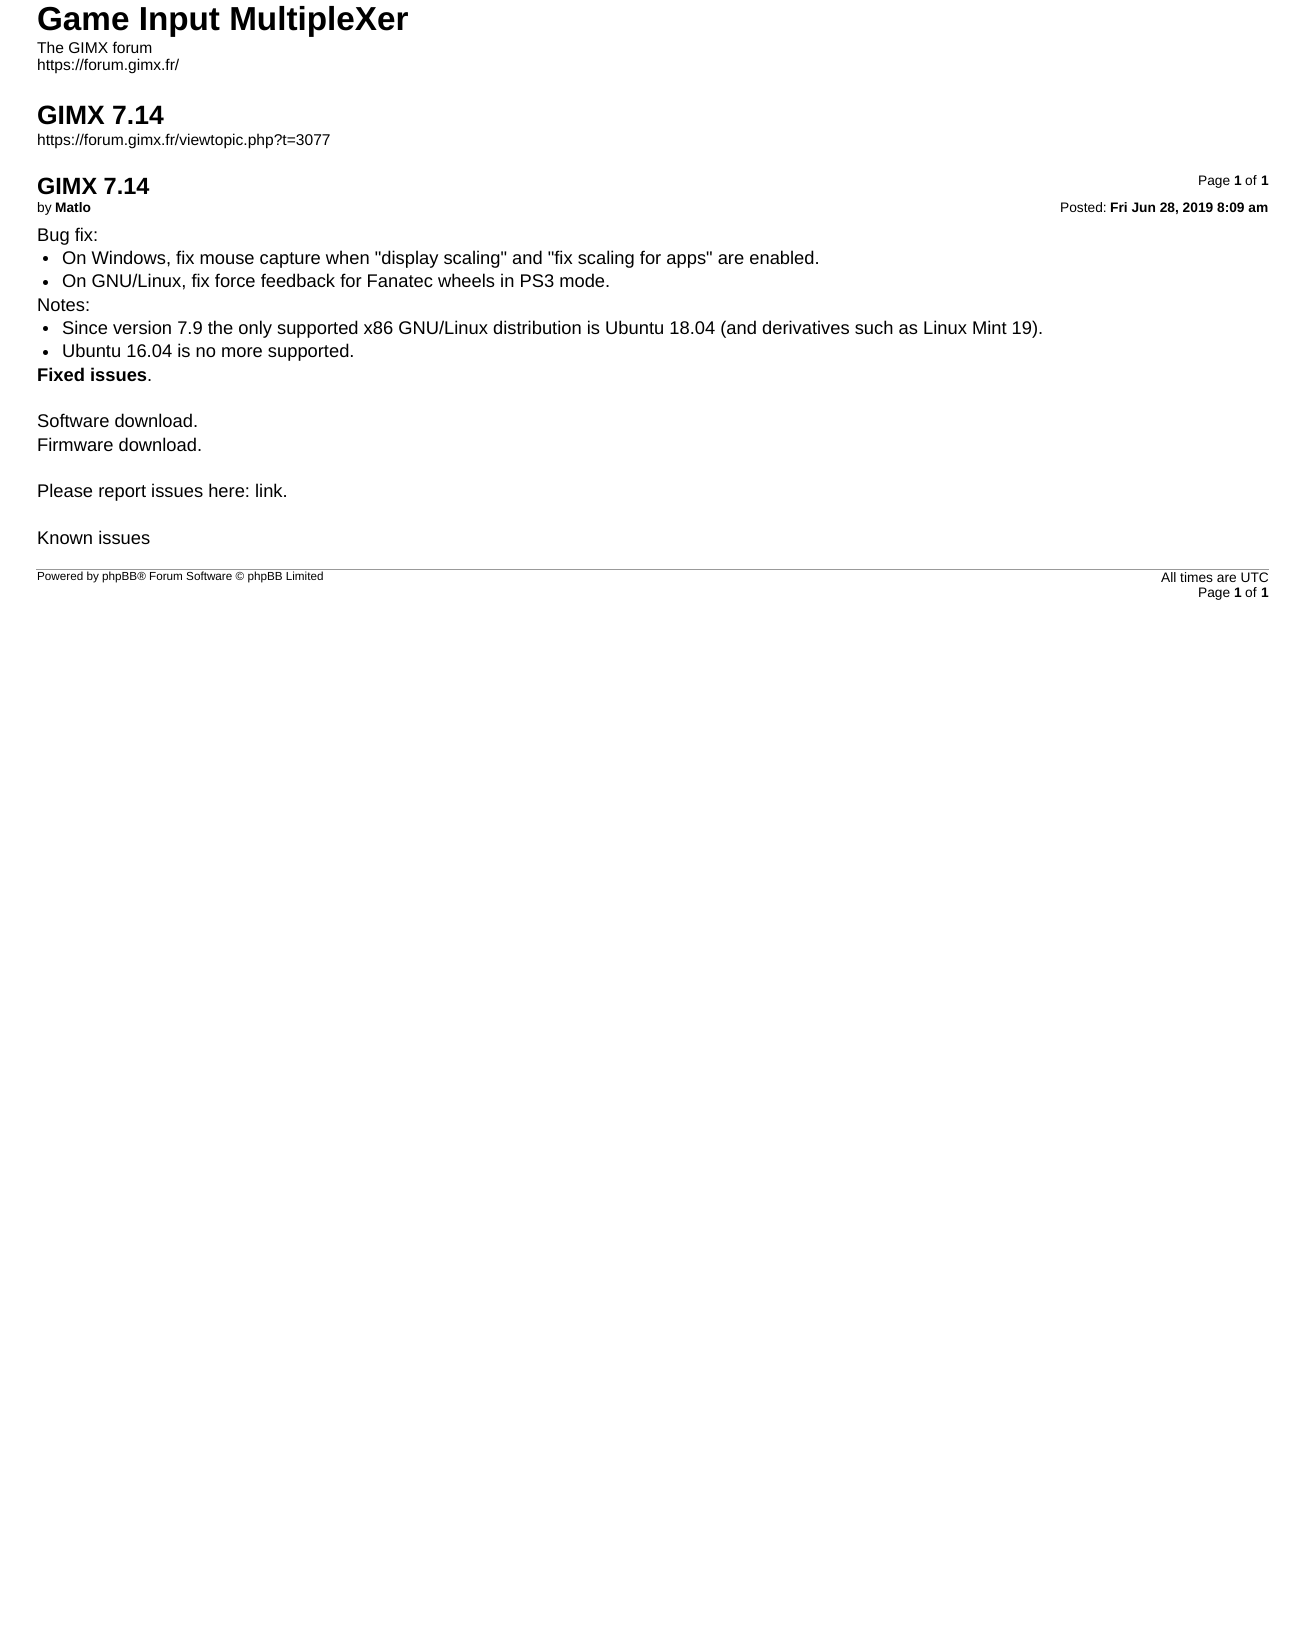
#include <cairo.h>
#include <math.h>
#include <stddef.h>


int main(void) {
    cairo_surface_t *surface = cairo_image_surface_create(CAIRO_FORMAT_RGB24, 1305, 1634);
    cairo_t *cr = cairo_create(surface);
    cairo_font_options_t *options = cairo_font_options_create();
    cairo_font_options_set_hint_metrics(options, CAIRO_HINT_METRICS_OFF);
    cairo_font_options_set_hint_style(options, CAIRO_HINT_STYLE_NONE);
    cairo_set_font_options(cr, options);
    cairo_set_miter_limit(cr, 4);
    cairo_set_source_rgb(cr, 1, 1, 1);
    cairo_paint(cr);
    cairo_select_font_face(cr, "Liberation Sans", CAIRO_FONT_SLANT_NORMAL, CAIRO_FONT_WEIGHT_BOLD);
    cairo_set_font_size(cr, 33.25);
    cairo_set_source_rgb(cr, 0, 0, 0);
    cairo_move_to(cr, 37, 30);
    cairo_show_text(cr, "Game Input MultipleXer");
    cairo_select_font_face(cr, "Liberation Sans", CAIRO_FONT_SLANT_NORMAL, CAIRO_FONT_WEIGHT_NORMAL);
    cairo_set_font_size(cr, 15.6);
    cairo_move_to(cr, 37, 53);
    cairo_show_text(cr, "The GIMX forum");
    cairo_move_to(cr, 37, 70);
    cairo_show_text(cr, "https://forum.gimx.fr/");
    cairo_select_font_face(cr, "Liberation Sans", CAIRO_FONT_SLANT_NORMAL, CAIRO_FONT_WEIGHT_BOLD);
    cairo_set_font_size(cr, 26.5);
    cairo_move_to(cr, 37, 124);
    cairo_show_text(cr, "GIMX 7.14");
    cairo_select_font_face(cr, "Liberation Sans", CAIRO_FONT_SLANT_NORMAL, CAIRO_FONT_WEIGHT_NORMAL);
    cairo_set_font_size(cr, 15.6);
    cairo_move_to(cr, 37, 145);
    cairo_show_text(cr, "https://forum.gimx.fr/viewtopic.php?t=3077");
    cairo_set_font_size(cr, 13.75);
    cairo_move_to(cr, 1198, 185);
    cairo_show_text(cr, "Page");
    cairo_select_font_face(cr, "Liberation Sans", CAIRO_FONT_SLANT_NORMAL, CAIRO_FONT_WEIGHT_BOLD);
    cairo_move_to(cr, 1234, 185);
    cairo_show_text(cr, "1");
    cairo_select_font_face(cr, "Liberation Sans", CAIRO_FONT_SLANT_NORMAL, CAIRO_FONT_WEIGHT_NORMAL);
    cairo_move_to(cr, 1245, 185);
    cairo_show_text(cr, "of");
    cairo_select_font_face(cr, "Liberation Sans", CAIRO_FONT_SLANT_NORMAL, CAIRO_FONT_WEIGHT_BOLD);
    cairo_move_to(cr, 1261, 185);
    cairo_show_text(cr, "1");
    cairo_set_font_size(cr, 23.5);
    cairo_move_to(cr, 37, 194);
    cairo_show_text(cr, "GIMX 7.14");
    cairo_select_font_face(cr, "Liberation Sans", CAIRO_FONT_SLANT_NORMAL, CAIRO_FONT_WEIGHT_NORMAL);
    cairo_set_font_size(cr, 13.75);
    cairo_move_to(cr, 37, 212);
    cairo_show_text(cr, "by");
    cairo_select_font_face(cr, "Liberation Sans", CAIRO_FONT_SLANT_NORMAL, CAIRO_FONT_WEIGHT_BOLD);
    cairo_move_to(cr, 55, 212);
    cairo_show_text(cr, "Matlo");
    cairo_select_font_face(cr, "Liberation Sans", CAIRO_FONT_SLANT_NORMAL, CAIRO_FONT_WEIGHT_NORMAL);
    cairo_move_to(cr, 1060, 212);
    cairo_show_text(cr, "Posted:");
    cairo_select_font_face(cr, "Liberation Sans", CAIRO_FONT_SLANT_NORMAL, CAIRO_FONT_WEIGHT_BOLD);
    cairo_move_to(cr, 1110, 212);
    cairo_show_text(cr, "Fri Jun 28, 2019 8:09 am");
    cairo_select_font_face(cr, "Liberation Sans", CAIRO_FONT_SLANT_NORMAL, CAIRO_FONT_WEIGHT_NORMAL);
    cairo_set_font_size(cr, 18.33);
    cairo_move_to(cr, 37, 241);
    cairo_show_text(cr, "Bug fix:");
    cairo_new_path(cr);
    cairo_arc(cr, 45.5, 258.5, 2.5, 0, 2 * M_PI);
    cairo_fill(cr);
    cairo_move_to(cr, 62, 264);
    cairo_show_text(cr, "On Windows, fix mouse capture when \"display scaling\" and \"fix scaling for apps\" are enabled.");
    cairo_new_path(cr);
    cairo_arc(cr, 45.5, 282.5, 2.5, 0, 2 * M_PI);
    cairo_fill(cr);
    cairo_move_to(cr, 62, 287);
    cairo_show_text(cr, "On GNU/Linux, fix force feedback for Fanatec wheels in PS3 mode.");
    cairo_move_to(cr, 37, 311);
    cairo_show_text(cr, "Notes:");
    cairo_new_path(cr);
    cairo_arc(cr, 45.5, 328.5, 2.5, 0, 2 * M_PI);
    cairo_fill(cr);
    cairo_move_to(cr, 62, 334);
    cairo_show_text(cr, "Since version 7.9 the only supported x86 GNU/Linux distribution is Ubuntu 18.04 (and derivatives such as Linux Mint 19).");
    cairo_new_path(cr);
    cairo_arc(cr, 45.5, 352.5, 2.5, 0, 2 * M_PI);
    cairo_fill(cr);
    cairo_move_to(cr, 62, 357);
    cairo_show_text(cr, "Ubuntu 16.04 is no more supported.");
    cairo_select_font_face(cr, "Liberation Sans", CAIRO_FONT_SLANT_NORMAL, CAIRO_FONT_WEIGHT_BOLD);
    cairo_move_to(cr, 37, 381);
    cairo_show_text(cr, "Fixed issues");
    cairo_select_font_face(cr, "Liberation Sans", CAIRO_FONT_SLANT_NORMAL, CAIRO_FONT_WEIGHT_NORMAL);
    cairo_move_to(cr, 147, 381);
    cairo_show_text(cr, ".");
    cairo_move_to(cr, 37, 427);
    cairo_show_text(cr, "Software download.");
    cairo_move_to(cr, 37, 451);
    cairo_show_text(cr, "Firmware download.");
    cairo_move_to(cr, 37, 497);
    cairo_show_text(cr, "Please report issues here: link.");
    cairo_move_to(cr, 37, 544);
    cairo_show_text(cr, "Known issues");
    cairo_set_source_rgb(cr, 0.6, 0.6, 0.6);
    cairo_rectangle(cr, 36, 569, 1233, 1);
    cairo_fill(cr);
    cairo_set_font_size(cr, 11.7);
    cairo_set_source_rgb(cr, 0, 0, 0);
    cairo_move_to(cr, 37, 580);
    cairo_show_text(cr, "Powered by phpBB® Forum Software © phpBB Limited");
    cairo_set_font_size(cr, 13.75);
    cairo_move_to(cr, 1161, 582);
    cairo_show_text(cr, "All times are UTC");
    cairo_move_to(cr, 1198, 597);
    cairo_show_text(cr, "Page");
    cairo_select_font_face(cr, "Liberation Sans", CAIRO_FONT_SLANT_NORMAL, CAIRO_FONT_WEIGHT_BOLD);
    cairo_move_to(cr, 1234, 597);
    cairo_show_text(cr, "1");
    cairo_select_font_face(cr, "Liberation Sans", CAIRO_FONT_SLANT_NORMAL, CAIRO_FONT_WEIGHT_NORMAL);
    cairo_move_to(cr, 1245, 597);
    cairo_show_text(cr, "of");
    cairo_select_font_face(cr, "Liberation Sans", CAIRO_FONT_SLANT_NORMAL, CAIRO_FONT_WEIGHT_BOLD);
    cairo_move_to(cr, 1261, 597);
    cairo_show_text(cr, "1");
    cairo_surface_write_to_png(surface, "page.png");
    cairo_font_options_destroy(options);
    cairo_destroy(cr);
    cairo_surface_destroy(surface);
    return 0;
}
